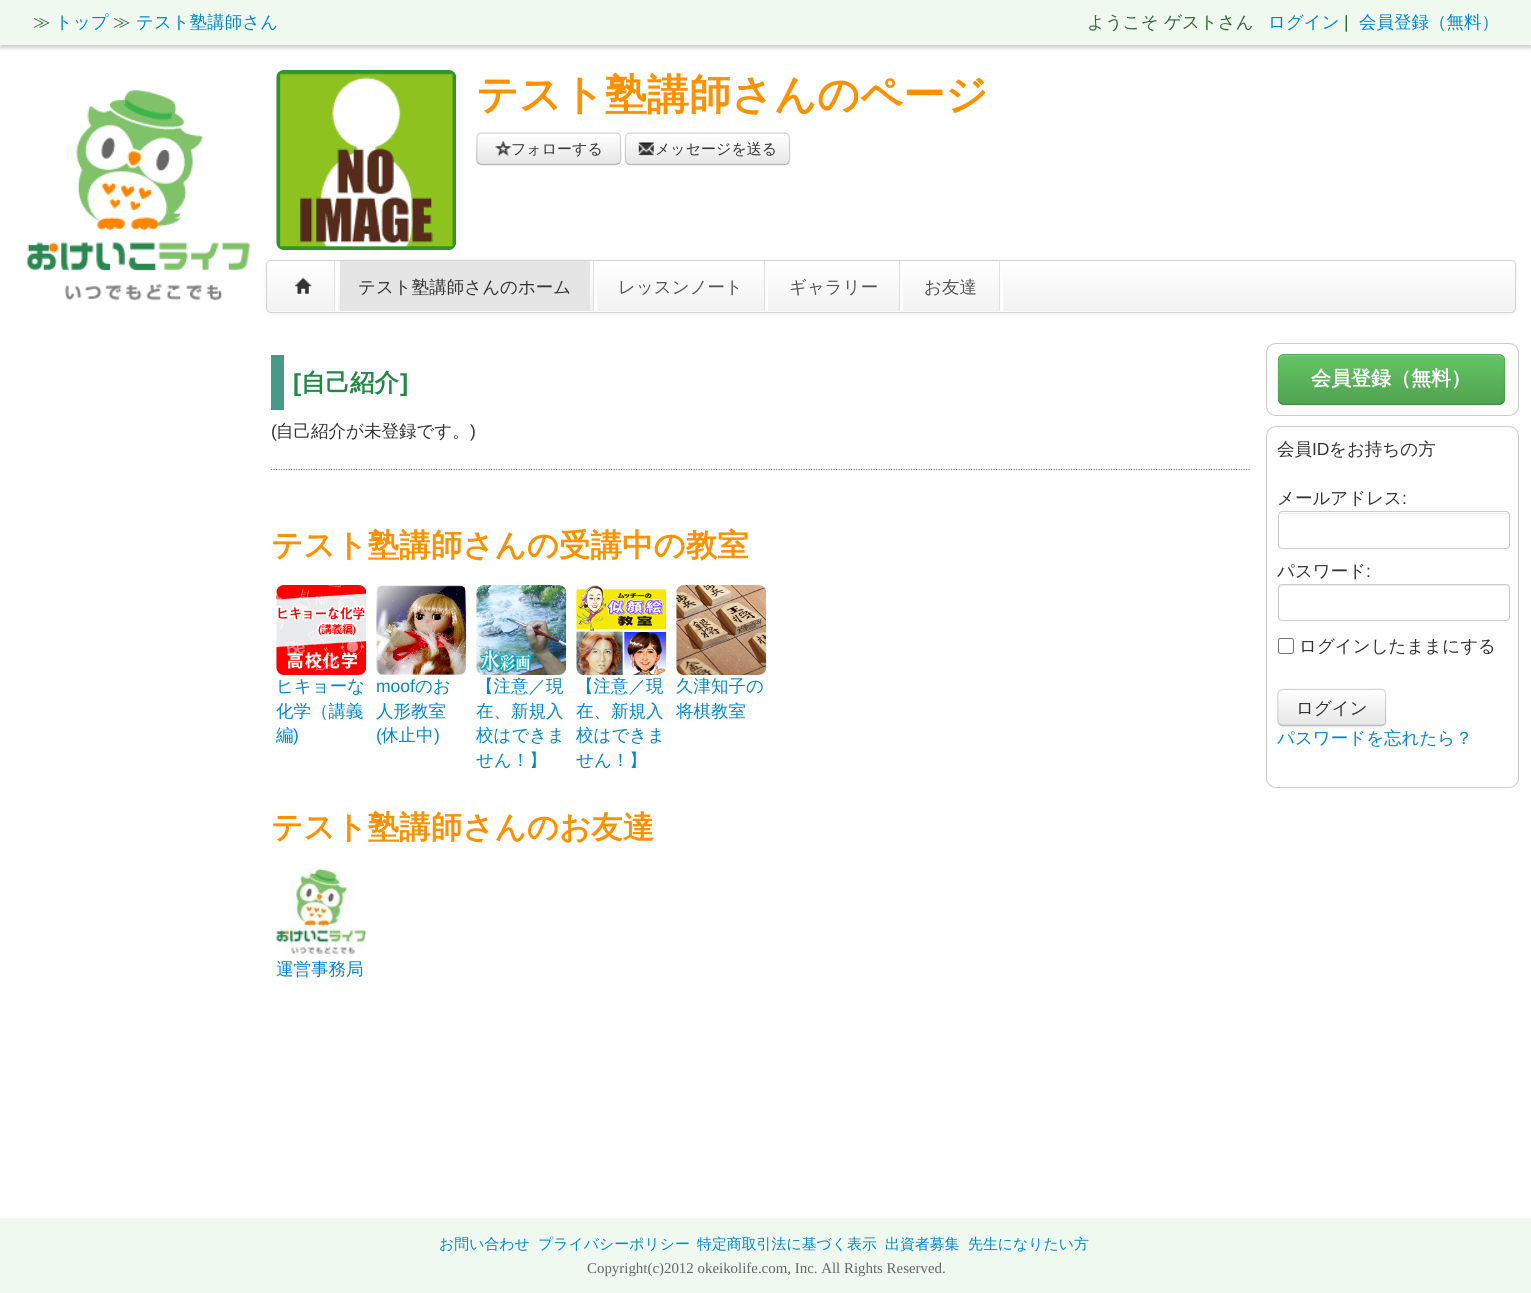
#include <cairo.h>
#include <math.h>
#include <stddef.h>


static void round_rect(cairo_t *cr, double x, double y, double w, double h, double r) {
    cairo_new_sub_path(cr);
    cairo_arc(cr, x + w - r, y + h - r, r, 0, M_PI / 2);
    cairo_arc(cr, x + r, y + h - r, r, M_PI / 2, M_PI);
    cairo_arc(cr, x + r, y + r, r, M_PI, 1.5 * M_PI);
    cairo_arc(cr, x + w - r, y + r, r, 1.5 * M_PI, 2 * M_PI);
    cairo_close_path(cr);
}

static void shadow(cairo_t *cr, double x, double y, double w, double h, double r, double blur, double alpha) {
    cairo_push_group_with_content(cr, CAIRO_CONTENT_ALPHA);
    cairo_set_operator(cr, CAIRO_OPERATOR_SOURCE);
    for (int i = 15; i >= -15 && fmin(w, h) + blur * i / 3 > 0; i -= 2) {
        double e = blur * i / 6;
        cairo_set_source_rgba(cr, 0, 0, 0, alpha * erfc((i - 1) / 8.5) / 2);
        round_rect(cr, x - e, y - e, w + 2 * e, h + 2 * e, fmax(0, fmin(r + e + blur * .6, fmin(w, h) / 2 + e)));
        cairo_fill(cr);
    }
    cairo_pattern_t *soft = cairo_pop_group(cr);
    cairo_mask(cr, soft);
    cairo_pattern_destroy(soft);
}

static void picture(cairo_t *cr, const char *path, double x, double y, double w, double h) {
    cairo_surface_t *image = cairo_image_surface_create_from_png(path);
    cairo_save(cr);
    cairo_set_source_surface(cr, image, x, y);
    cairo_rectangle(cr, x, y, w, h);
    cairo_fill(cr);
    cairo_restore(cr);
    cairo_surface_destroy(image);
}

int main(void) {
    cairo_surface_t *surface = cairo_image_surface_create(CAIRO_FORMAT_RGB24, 1531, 1293);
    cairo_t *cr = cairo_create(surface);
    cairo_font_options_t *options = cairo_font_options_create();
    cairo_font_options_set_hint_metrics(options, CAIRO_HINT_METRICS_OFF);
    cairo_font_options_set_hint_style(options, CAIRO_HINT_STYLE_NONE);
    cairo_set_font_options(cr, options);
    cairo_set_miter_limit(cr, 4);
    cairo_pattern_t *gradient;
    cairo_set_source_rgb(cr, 1, 1, 1);
    cairo_paint(cr);
    cairo_set_source_rgb(cr, 0, 0, 0);
    shadow(cr, 0, 3, 1531, 45, 0, 2, 0.2);
    cairo_set_source_rgb(cr, 0.941, 0.973, 0.941);
    cairo_rectangle(cr, 0, 0, 1531, 45);
    cairo_fill(cr);
    cairo_select_font_face(cr, "WenQuanYi Zen Hei Medium", CAIRO_FONT_SLANT_NORMAL, CAIRO_FONT_WEIGHT_NORMAL);
    cairo_set_font_size(cr, 17.5);
    cairo_set_source_rgb(cr, 0.2, 0.4, 0.2);
    cairo_move_to(cr, 33, 28);
    cairo_show_text(cr, "≫");
    cairo_set_source_rgb(cr, 0, 0.533, 0.8);
    cairo_move_to(cr, 55, 28);
    cairo_show_text(cr, "トップ");
    cairo_set_source_rgb(cr, 0.2, 0.4, 0.2);
    cairo_move_to(cr, 113, 28);
    cairo_show_text(cr, "≫");
    cairo_set_source_rgb(cr, 0, 0.533, 0.8);
    cairo_move_to(cr, 136, 28);
    cairo_show_text(cr, "テスト塾講師さん");
    cairo_set_source_rgb(cr, 0.2, 0.4, 0.2);
    cairo_move_to(cr, 1087, 28);
    cairo_show_text(cr, "ようこそ");
    cairo_move_to(cr, 1164, 28);
    cairo_show_text(cr, "ゲストさん");
    cairo_set_source_rgb(cr, 0, 0.533, 0.8);
    cairo_move_to(cr, 1268, 28);
    cairo_show_text(cr, "ログイン");
    cairo_select_font_face(cr, "Liberation Sans", CAIRO_FONT_SLANT_NORMAL, CAIRO_FONT_WEIGHT_NORMAL);
    cairo_set_source_rgb(cr, 0.2, 0.4, 0.2);
    cairo_move_to(cr, 1344, 28);
    cairo_show_text(cr, "|");
    cairo_select_font_face(cr, "WenQuanYi Zen Hei Medium", CAIRO_FONT_SLANT_NORMAL, CAIRO_FONT_WEIGHT_NORMAL);
    cairo_set_source_rgb(cr, 0, 0.533, 0.8);
    cairo_move_to(cr, 1359, 28);
    cairo_show_text(cr, "会員登録（無料）");
    picture(cr, "img1.png", 27, 89, 224, 212);
    picture(cr, "img2.png", 276, 70, 181, 180);
    cairo_select_font_face(cr, "WenQuanYi Zen Hei", CAIRO_FONT_SLANT_NORMAL, CAIRO_FONT_WEIGHT_BOLD);
    cairo_set_font_size(cr, 42);
    cairo_set_source_rgb(cr, 1, 0.565, 0);
    cairo_move_to(cr, 476, 109);
    cairo_show_text(cr, "テスト塾講師さんのページ");
    cairo_set_source_rgb(cr, 0, 0, 0);
    shadow(cr, 476, 134, 145, 32, 5, 1, 0.05);
    cairo_set_source_rgb(cr, 0.961, 0.961, 0.961);
    round_rect(cr, 476, 133, 145, 32, 5);
    cairo_fill(cr);
    cairo_save(cr);
    round_rect(cr, 476, 133, 145, 32, 5);
    cairo_clip(cr);
    gradient = cairo_pattern_create_linear(549, 134, 549, 164);
    cairo_pattern_add_color_stop_rgba(gradient, 0, 1, 1, 1, 1);
    cairo_pattern_add_color_stop_rgba(gradient, 1, 0.902, 0.902, 0.902, 1);
    cairo_set_source(cr, gradient);
    cairo_pattern_destroy(gradient);
    cairo_rectangle(cr, 476, 134, 145, 30);
    cairo_fill(cr);
    cairo_restore(cr);
    cairo_new_path(cr);
    cairo_move_to(cr, 619.5, 163);
    cairo_line_to(cr, 616, 164.5);
    cairo_line_to(cr, 481, 164.5);
    cairo_line_to(cr, 478, 163);
    cairo_set_source_rgba(cr, 0, 0, 0, 0.25);
    cairo_set_line_width(cr, 1.2);
    cairo_stroke(cr);
    cairo_new_path(cr);
    cairo_move_to(cr, 478, 163);
    cairo_curve_to(cr, 475.5, 160.5, 477, 152, 477, 149);
    cairo_line_to(cr, 477, 141);
    cairo_curve_to(cr, 477, 138, 476.5, 133, 481, 133);
    cairo_line_to(cr, 616, 133);
    cairo_curve_to(cr, 621, 133, 620.5, 138, 620.5, 141);
    cairo_line_to(cr, 620.5, 149);
    cairo_curve_to(cr, 620.5, 152, 622, 160.5, 619.5, 163);
    cairo_set_source_rgba(cr, 0, 0, 0, 0.15);
    cairo_stroke(cr);
    picture(cr, "img3.png", 495, 141, 17, 16);
    cairo_select_font_face(cr, "WenQuanYi Zen Hei Medium", CAIRO_FONT_SLANT_NORMAL, CAIRO_FONT_WEIGHT_NORMAL);
    cairo_set_font_size(cr, 15);
    cairo_set_source_rgb(cr, 0.2, 0.2, 0.2);
    cairo_move_to(cr, 511, 154);
    cairo_show_text(cr, "フォローする");
    cairo_set_source_rgb(cr, 0, 0, 0);
    shadow(cr, 625, 134, 165, 32, 5, 1, 0.05);
    cairo_set_source_rgb(cr, 0.961, 0.961, 0.961);
    round_rect(cr, 625, 133, 165, 32, 5);
    cairo_fill(cr);
    cairo_save(cr);
    round_rect(cr, 625, 133, 165, 32, 5);
    cairo_clip(cr);
    gradient = cairo_pattern_create_linear(708, 134, 708, 164);
    cairo_pattern_add_color_stop_rgba(gradient, 0, 1, 1, 1, 1);
    cairo_pattern_add_color_stop_rgba(gradient, 1, 0.902, 0.902, 0.902, 1);
    cairo_set_source(cr, gradient);
    cairo_pattern_destroy(gradient);
    cairo_rectangle(cr, 625, 134, 165, 30);
    cairo_fill(cr);
    cairo_restore(cr);
    cairo_new_path(cr);
    cairo_move_to(cr, 788, 163);
    cairo_curve_to(cr, 787.5, 164, 786, 164.5, 785, 164.5);
    cairo_line_to(cr, 630, 164.5);
    cairo_curve_to(cr, 629, 164.5, 627.5, 164, 627, 163);
    cairo_set_source_rgba(cr, 0, 0, 0, 0.25);
    cairo_stroke(cr);
    cairo_new_path(cr);
    cairo_move_to(cr, 627, 163);
    cairo_curve_to(cr, 624.5, 160.5, 625.5, 152, 625.5, 149);
    cairo_line_to(cr, 625.5, 141);
    cairo_curve_to(cr, 625.5, 138, 625.5, 133, 630, 133);
    cairo_line_to(cr, 785, 133);
    cairo_curve_to(cr, 789.5, 133, 789.5, 138, 789.5, 141);
    cairo_line_to(cr, 789.5, 149);
    cairo_curve_to(cr, 789.5, 152, 790.5, 160.5, 788, 163);
    cairo_set_source_rgba(cr, 0, 0, 0, 0.15);
    cairo_stroke(cr);
    picture(cr, "img4.png", 638, 142, 16, 14);
    cairo_set_source_rgb(cr, 0.2, 0.2, 0.2);
    cairo_move_to(cr, 655, 154);
    cairo_show_text(cr, "メッセージを送る");
    cairo_set_source_rgb(cr, 0, 0, 0);
    shadow(cr, 266, 261, 1250, 53, 5, 2.5, 0.07);
    cairo_set_source_rgb(cr, 0.98, 0.98, 0.98);
    round_rect(cr, 266, 260, 1250, 53, 5);
    cairo_fill(cr);
    cairo_save(cr);
    round_rect(cr, 266, 260, 1250, 53, 5);
    cairo_clip(cr);
    gradient = cairo_pattern_create_linear(891, 261, 891, 311);
    cairo_pattern_add_color_stop_rgba(gradient, 0, 1, 1, 1, 1);
    cairo_pattern_add_color_stop_rgba(gradient, 1, 0.949, 0.949, 0.949, 1);
    cairo_set_source(cr, gradient);
    cairo_pattern_destroy(gradient);
    cairo_rectangle(cr, 266, 261, 1250, 50);
    cairo_fill(cr);
    cairo_restore(cr);
    round_rect(cr, 266.5, 260.5, 1249, 52, 4.5);
    cairo_set_source_rgb(cr, 0.831, 0.831, 0.831);
    cairo_set_line_width(cr, 1);
    cairo_stroke(cr);
    picture(cr, "img5.png", 295, 277, 17, 17);
    cairo_set_source_rgb(cr, 1, 1, 1);
    cairo_rectangle(cr, 335, 271, 3, 40);
    cairo_fill(cr);
    cairo_set_source_rgb(cr, 0.878, 0.878, 0.878);
    cairo_rectangle(cr, 334, 261, 1, 50);
    cairo_fill(cr);
    cairo_set_source_rgb(cr, 0.898, 0.898, 0.898);
    cairo_rectangle(cr, 340, 261, 250, 50);
    cairo_fill(cr);
    cairo_set_font_size(cr, 17.5);
    cairo_set_source_rgb(cr, 0.2, 0.2, 0.2);
    cairo_move_to(cr, 358, 293);
    cairo_show_text(cr, "テスト塾講師さんのホーム");
    cairo_set_source_rgb(cr, 1, 1, 1);
    cairo_rectangle(cr, 594, 271, 3, 40);
    cairo_fill(cr);
    cairo_set_source_rgb(cr, 0.878, 0.878, 0.878);
    cairo_rectangle(cr, 593, 261, 1, 50);
    cairo_fill(cr);
    cairo_set_source_rgb(cr, 0.333, 0.333, 0.333);
    cairo_move_to(cr, 618, 293);
    cairo_show_text(cr, "レッスンノート");
    cairo_set_source_rgb(cr, 1, 1, 1);
    cairo_rectangle(cr, 765, 271, 3, 40);
    cairo_fill(cr);
    cairo_set_source_rgb(cr, 0.878, 0.878, 0.878);
    cairo_rectangle(cr, 764, 261, 1, 50);
    cairo_fill(cr);
    cairo_set_source_rgb(cr, 0.333, 0.333, 0.333);
    cairo_move_to(cr, 789, 293);
    cairo_show_text(cr, "ギャラリー");
    cairo_set_source_rgb(cr, 1, 1, 1);
    cairo_rectangle(cr, 900, 271, 3, 40);
    cairo_fill(cr);
    cairo_set_source_rgb(cr, 0.878, 0.878, 0.878);
    cairo_rectangle(cr, 899, 261, 1, 50);
    cairo_fill(cr);
    cairo_set_source_rgb(cr, 0.333, 0.333, 0.333);
    cairo_move_to(cr, 924, 293);
    cairo_show_text(cr, "お友達");
    cairo_set_source_rgb(cr, 1, 1, 1);
    cairo_rectangle(cr, 1000, 271, 3, 40);
    cairo_fill(cr);
    cairo_set_source_rgb(cr, 0.878, 0.878, 0.878);
    cairo_rectangle(cr, 999, 261, 1, 50);
    cairo_fill(cr);
    cairo_set_source_rgb(cr, 0.267, 0.6, 0.533);
    cairo_rectangle(cr, 271, 355, 13, 55);
    cairo_fill(cr);
    cairo_select_font_face(cr, "Liberation Sans", CAIRO_FONT_SLANT_NORMAL, CAIRO_FONT_WEIGHT_BOLD);
    cairo_set_font_size(cr, 24.5);
    cairo_set_source_rgb(cr, 0.133, 0.533, 0.267);
    cairo_move_to(cr, 293, 391);
    cairo_show_text(cr, "[");
    cairo_select_font_face(cr, "WenQuanYi Zen Hei", CAIRO_FONT_SLANT_NORMAL, CAIRO_FONT_WEIGHT_BOLD);
    cairo_move_to(cr, 301, 391);
    cairo_show_text(cr, "自己紹介");
    cairo_select_font_face(cr, "Liberation Sans", CAIRO_FONT_SLANT_NORMAL, CAIRO_FONT_WEIGHT_BOLD);
    cairo_move_to(cr, 400, 391);
    cairo_show_text(cr, "]");
    cairo_select_font_face(cr, "Liberation Sans", CAIRO_FONT_SLANT_NORMAL, CAIRO_FONT_WEIGHT_NORMAL);
    cairo_set_font_size(cr, 17.5);
    cairo_set_source_rgb(cr, 0.2, 0.2, 0.2);
    cairo_move_to(cr, 271, 437);
    cairo_show_text(cr, "(");
    cairo_select_font_face(cr, "WenQuanYi Zen Hei Medium", CAIRO_FONT_SLANT_NORMAL, CAIRO_FONT_WEIGHT_NORMAL);
    cairo_move_to(cr, 276, 437);
    cairo_show_text(cr, "自己紹介が未登録です。");
    cairo_select_font_face(cr, "Liberation Sans", CAIRO_FONT_SLANT_NORMAL, CAIRO_FONT_WEIGHT_NORMAL);
    cairo_move_to(cr, 470, 437);
    cairo_show_text(cr, ")");
    cairo_new_path(cr);
    cairo_move_to(cr, 271, 469.5);
    cairo_line_to(cr, 1251, 469.5);
    cairo_set_source_rgb(cr, 0.533, 0.533, 0.533);
    cairo_set_line_width(cr, 1.2);
    cairo_set_dash(cr, (double[]){1.25, 1.25}, 2, 0);
    cairo_stroke(cr);
    cairo_select_font_face(cr, "WenQuanYi Zen Hei", CAIRO_FONT_SLANT_NORMAL, CAIRO_FONT_WEIGHT_BOLD);
    cairo_set_font_size(cr, 31.5);
    cairo_set_source_rgb(cr, 1, 0.565, 0);
    cairo_move_to(cr, 271, 556);
    cairo_show_text(cr, "テスト塾講師さんの受講中の教室");
    picture(cr, "img6.png", 276, 585, 91, 90);
    cairo_select_font_face(cr, "WenQuanYi Zen Hei Medium", CAIRO_FONT_SLANT_NORMAL, CAIRO_FONT_WEIGHT_NORMAL);
    cairo_set_font_size(cr, 17.5);
    cairo_set_source_rgb(cr, 0, 0.533, 0.8);
    cairo_move_to(cr, 276, 692);
    cairo_show_text(cr, "ヒキョーな");
    cairo_move_to(cr, 276, 717);
    cairo_show_text(cr, "化学（講義");
    cairo_move_to(cr, 276, 741);
    cairo_show_text(cr, "編");
    cairo_select_font_face(cr, "Liberation Sans", CAIRO_FONT_SLANT_NORMAL, CAIRO_FONT_WEIGHT_NORMAL);
    cairo_move_to(cr, 293, 741);
    cairo_show_text(cr, ")");
    picture(cr, "img7.png", 376, 585, 91, 90);
    cairo_move_to(cr, 376, 692);
    cairo_show_text(cr, "moof");
    cairo_select_font_face(cr, "WenQuanYi Zen Hei Medium", CAIRO_FONT_SLANT_NORMAL, CAIRO_FONT_WEIGHT_NORMAL);
    cairo_move_to(cr, 415, 692);
    cairo_show_text(cr, "のお");
    cairo_move_to(cr, 376, 717);
    cairo_show_text(cr, "人形教室");
    cairo_select_font_face(cr, "Liberation Sans", CAIRO_FONT_SLANT_NORMAL, CAIRO_FONT_WEIGHT_NORMAL);
    cairo_move_to(cr, 376, 741);
    cairo_show_text(cr, "(");
    cairo_select_font_face(cr, "WenQuanYi Zen Hei Medium", CAIRO_FONT_SLANT_NORMAL, CAIRO_FONT_WEIGHT_NORMAL);
    cairo_move_to(cr, 381, 741);
    cairo_show_text(cr, "休止中");
    cairo_select_font_face(cr, "Liberation Sans", CAIRO_FONT_SLANT_NORMAL, CAIRO_FONT_WEIGHT_NORMAL);
    cairo_move_to(cr, 434, 741);
    cairo_show_text(cr, ")");
    picture(cr, "img8.png", 476, 585, 91, 90);
    cairo_select_font_face(cr, "WenQuanYi Zen Hei Medium", CAIRO_FONT_SLANT_NORMAL, CAIRO_FONT_WEIGHT_NORMAL);
    cairo_move_to(cr, 476, 692);
    cairo_show_text(cr, "【注意／現");
    cairo_move_to(cr, 476, 717);
    cairo_show_text(cr, "在、新規入");
    cairo_move_to(cr, 476, 741);
    cairo_show_text(cr, "校はできま");
    cairo_move_to(cr, 476, 766);
    cairo_show_text(cr, "せん！】");
    picture(cr, "img9.png", 576, 585, 91, 90);
    cairo_move_to(cr, 576, 692);
    cairo_show_text(cr, "【注意／現");
    cairo_move_to(cr, 576, 717);
    cairo_show_text(cr, "在、新規入");
    cairo_move_to(cr, 576, 741);
    cairo_show_text(cr, "校はできま");
    cairo_move_to(cr, 576, 766);
    cairo_show_text(cr, "せん！】");
    picture(cr, "img10.png", 676, 585, 91, 90);
    cairo_move_to(cr, 676, 692);
    cairo_show_text(cr, "久津知子の");
    cairo_move_to(cr, 676, 717);
    cairo_show_text(cr, "将棋教室");
    cairo_select_font_face(cr, "WenQuanYi Zen Hei", CAIRO_FONT_SLANT_NORMAL, CAIRO_FONT_WEIGHT_BOLD);
    cairo_set_font_size(cr, 31.5);
    cairo_set_source_rgb(cr, 1, 0.565, 0);
    cairo_move_to(cr, 271, 838);
    cairo_show_text(cr, "テスト塾講師さんのお友達");
    picture(cr, "img11.png", 276, 868, 91, 89);
    cairo_select_font_face(cr, "WenQuanYi Zen Hei Medium", CAIRO_FONT_SLANT_NORMAL, CAIRO_FONT_WEIGHT_NORMAL);
    cairo_set_font_size(cr, 17.5);
    cairo_set_source_rgb(cr, 0, 0.533, 0.8);
    cairo_move_to(cr, 276, 975);
    cairo_show_text(cr, "運営事務局");
    round_rect(cr, 1266.5, 343.5, 252, 72, 9.5);
    cairo_set_source_rgb(cr, 0.8, 0.8, 0.8);
    cairo_set_line_width(cr, 1);
    cairo_set_dash(cr, NULL, 0, 0);
    cairo_stroke(cr);
    cairo_set_source_rgb(cr, 0, 0, 0);
    shadow(cr, 1278, 355, 227, 51, 6, 1, 0.05);
    cairo_set_source_rgb(cr, 0.357, 0.718, 0.357);
    round_rect(cr, 1278, 354, 227, 51, 6);
    cairo_fill(cr);
    cairo_save(cr);
    round_rect(cr, 1278, 354, 227, 51, 6);
    cairo_clip(cr);
    gradient = cairo_pattern_create_linear(1391, 355, 1391, 404);
    cairo_pattern_add_color_stop_rgba(gradient, 0, 0.384, 0.769, 0.384, 1);
    cairo_pattern_add_color_stop_rgba(gradient, 1, 0.318, 0.639, 0.318, 1);
    cairo_set_source(cr, gradient);
    cairo_pattern_destroy(gradient);
    cairo_rectangle(cr, 1278, 355, 227, 49);
    cairo_fill(cr);
    cairo_restore(cr);
    cairo_set_source_rgb(cr, 0.506, 0.816, 0.506);
    cairo_new_path(cr);
    cairo_move_to(cr, 1284, 356);
    cairo_line_to(cr, 1499, 356);
    cairo_curve_to(cr, 1502, 356, 1504, 358, 1504, 361);
    cairo_line_to(cr, 1504, 360);
    cairo_curve_to(cr, 1504, 357, 1502, 355, 1499, 355);
    cairo_line_to(cr, 1284, 355);
    cairo_curve_to(cr, 1281, 355, 1279, 357, 1279, 360);
    cairo_line_to(cr, 1279, 361);
    cairo_curve_to(cr, 1279, 358, 1281, 356, 1284, 356);
    cairo_close_path(cr);
    cairo_fill(cr);
    cairo_new_path(cr);
    cairo_move_to(cr, 1502.5, 402.5);
    cairo_curve_to(cr, 1501.5, 404, 1500, 404.5, 1499, 404.5);
    cairo_line_to(cr, 1284, 404.5);
    cairo_curve_to(cr, 1282.5, 404.5, 1281, 404, 1280, 402.5);
    cairo_set_source_rgba(cr, 0, 0, 0, 0.25);
    cairo_set_line_width(cr, 1.2);
    cairo_stroke(cr);
    cairo_new_path(cr);
    cairo_move_to(cr, 1280, 402.5);
    cairo_curve_to(cr, 1278.5, 401.5, 1278, 400, 1278, 399);
    cairo_line_to(cr, 1278, 360);
    cairo_curve_to(cr, 1278, 358.5, 1278.5, 357, 1280, 356);
    cairo_curve_to(cr, 1281, 355, 1282.5, 354.5, 1284, 354.5);
    cairo_line_to(cr, 1499, 354.5);
    cairo_curve_to(cr, 1500, 354.5, 1501.5, 355, 1502.5, 356);
    cairo_curve_to(cr, 1504, 357, 1504.5, 358.5, 1504.5, 360);
    cairo_line_to(cr, 1504.5, 399);
    cairo_curve_to(cr, 1504.5, 400, 1504, 401.5, 1502.5, 402.5);
    cairo_set_source_rgba(cr, 0, 0, 0, 0.1);
    cairo_stroke(cr);
    cairo_select_font_face(cr, "WenQuanYi Zen Hei", CAIRO_FONT_SLANT_NORMAL, CAIRO_FONT_WEIGHT_BOLD);
    cairo_set_font_size(cr, 20);
    cairo_set_source_rgb(cr, 1, 1, 1);
    cairo_move_to(cr, 1311, 385);
    cairo_show_text(cr, "会員登録（無料）");
    round_rect(cr, 1266.5, 426.5, 252, 361, 9.5);
    cairo_set_source_rgb(cr, 0.8, 0.8, 0.8);
    cairo_set_line_width(cr, 1);
    cairo_stroke(cr);
    cairo_select_font_face(cr, "WenQuanYi Zen Hei Medium", CAIRO_FONT_SLANT_NORMAL, CAIRO_FONT_WEIGHT_NORMAL);
    cairo_set_font_size(cr, 17.5);
    cairo_set_source_rgb(cr, 0.2, 0.2, 0.2);
    cairo_move_to(cr, 1277, 455);
    cairo_show_text(cr, "会員");
    cairo_select_font_face(cr, "Liberation Sans", CAIRO_FONT_SLANT_NORMAL, CAIRO_FONT_WEIGHT_NORMAL);
    cairo_move_to(cr, 1312, 455);
    cairo_show_text(cr, "ID");
    cairo_select_font_face(cr, "WenQuanYi Zen Hei Medium", CAIRO_FONT_SLANT_NORMAL, CAIRO_FONT_WEIGHT_NORMAL);
    cairo_move_to(cr, 1329, 455);
    cairo_show_text(cr, "をお持ちの方");
    cairo_move_to(cr, 1277, 504);
    cairo_show_text(cr, "メールアドレス");
    cairo_select_font_face(cr, "Liberation Sans", CAIRO_FONT_SLANT_NORMAL, CAIRO_FONT_WEIGHT_NORMAL);
    cairo_move_to(cr, 1402, 504);
    cairo_show_text(cr, ":");
    cairo_set_source_rgb(cr, 0.925, 0.925, 0.925);
    cairo_new_path(cr);
    cairo_move_to(cr, 1281, 514);
    cairo_line_to(cr, 1506, 514);
    cairo_curve_to(cr, 1508, 514, 1509, 515, 1509, 516);
    cairo_curve_to(cr, 1509, 514, 1508, 513, 1506, 513);
    cairo_line_to(cr, 1282, 513);
    cairo_curve_to(cr, 1280, 513, 1279, 514, 1279, 516);
    cairo_curve_to(cr, 1279, 515, 1280, 514, 1281, 514);
    cairo_close_path(cr);
    cairo_fill(cr);
    round_rect(cr, 1278.5, 511.5, 231, 37, 3.5);
    cairo_set_source_rgb(cr, 0.8, 0.8, 0.8);
    cairo_stroke(cr);
    cairo_select_font_face(cr, "WenQuanYi Zen Hei Medium", CAIRO_FONT_SLANT_NORMAL, CAIRO_FONT_WEIGHT_NORMAL);
    cairo_set_source_rgb(cr, 0.2, 0.2, 0.2);
    cairo_move_to(cr, 1277, 577);
    cairo_show_text(cr, "パスワード");
    cairo_select_font_face(cr, "Liberation Sans", CAIRO_FONT_SLANT_NORMAL, CAIRO_FONT_WEIGHT_NORMAL);
    cairo_move_to(cr, 1366, 577);
    cairo_show_text(cr, ":");
    cairo_set_source_rgb(cr, 0.925, 0.925, 0.925);
    cairo_new_path(cr);
    cairo_move_to(cr, 1281, 586);
    cairo_line_to(cr, 1506, 586);
    cairo_curve_to(cr, 1508, 586, 1509, 587, 1509, 589);
    cairo_curve_to(cr, 1509, 587, 1509, 585, 1506, 585);
    cairo_line_to(cr, 1282, 585);
    cairo_curve_to(cr, 1279, 585, 1279, 587, 1279, 589);
    cairo_curve_to(cr, 1279, 587, 1280, 586, 1281, 586);
    cairo_close_path(cr);
    cairo_fill(cr);
    round_rect(cr, 1278.5, 584.5, 231, 36, 3.5);
    cairo_set_source_rgb(cr, 0.8, 0.8, 0.8);
    cairo_stroke(cr);
    round_rect(cr, 1278.5, 638.5, 15, 15, 2);
    cairo_set_source_rgb(cr, 0.463, 0.463, 0.463);
    cairo_stroke(cr);
    cairo_select_font_face(cr, "WenQuanYi Zen Hei Medium", CAIRO_FONT_SLANT_NORMAL, CAIRO_FONT_WEIGHT_NORMAL);
    cairo_set_source_rgb(cr, 0.2, 0.2, 0.2);
    cairo_move_to(cr, 1299, 652);
    cairo_show_text(cr, "ログインしたままにする");
    cairo_set_source_rgb(cr, 0, 0, 0);
    shadow(cr, 1278, 690, 108, 38, 5, 1, 0.05);
    cairo_set_source_rgb(cr, 0.961, 0.961, 0.961);
    round_rect(cr, 1278, 689, 108, 37, 5);
    cairo_fill(cr);
    cairo_save(cr);
    round_rect(cr, 1278, 689, 108, 37, 5);
    cairo_clip(cr);
    gradient = cairo_pattern_create_linear(1332, 690, 1332, 725);
    cairo_pattern_add_color_stop_rgba(gradient, 0, 1, 1, 1, 1);
    cairo_pattern_add_color_stop_rgba(gradient, 1, 0.902, 0.902, 0.902, 1);
    cairo_set_source(cr, gradient);
    cairo_pattern_destroy(gradient);
    cairo_rectangle(cr, 1278, 690, 108, 35);
    cairo_fill(cr);
    cairo_restore(cr);
    cairo_new_path(cr);
    cairo_move_to(cr, 1384.5, 724.5);
    cairo_line_to(cr, 1381.5, 725.5);
    cairo_line_to(cr, 1282, 725.5);
    cairo_line_to(cr, 1279.5, 724.5);
    cairo_set_source_rgba(cr, 0, 0, 0, 0.25);
    cairo_set_line_width(cr, 1.2);
    cairo_stroke(cr);
    cairo_new_path(cr);
    cairo_move_to(cr, 1279.5, 724.5);
    cairo_curve_to(cr, 1276.5, 721.5, 1278, 715, 1278, 712);
    cairo_curve_to(cr, 1278, 686.5, 1273.5, 689.5, 1299, 689.5);
    cairo_line_to(cr, 1365, 689.5);
    cairo_curve_to(cr, 1388.5, 689.5, 1385.5, 686, 1385.5, 707.5);
    cairo_line_to(cr, 1385.5, 716.5);
    cairo_curve_to(cr, 1385.5, 719, 1386.5, 722.5, 1384.5, 724.5);
    cairo_set_source_rgba(cr, 0, 0, 0, 0.15);
    cairo_stroke(cr);
    cairo_set_source_rgb(cr, 0.2, 0.2, 0.2);
    cairo_move_to(cr, 1296, 714);
    cairo_show_text(cr, "ログイン");
    cairo_set_source_rgb(cr, 0, 0.533, 0.8);
    cairo_move_to(cr, 1277, 744);
    cairo_show_text(cr, "パスワードを忘れたら？");
    cairo_set_source_rgb(cr, 0.941, 0.973, 0.941);
    cairo_rectangle(cr, 0, 1218, 1531, 75);
    cairo_fill(cr);
    cairo_set_font_size(cr, 14.9);
    cairo_set_source_rgb(cr, 0, 0.533, 0.8);
    cairo_move_to(cr, 439, 1249);
    cairo_show_text(cr, "お問い合わせ");
    cairo_move_to(cr, 538, 1249);
    cairo_show_text(cr, "プライバシーポリシー");
    cairo_move_to(cr, 697, 1249);
    cairo_show_text(cr, "特定商取引法に基づく表示");
    cairo_move_to(cr, 885, 1249);
    cairo_show_text(cr, "出資者募集");
    cairo_move_to(cr, 968, 1249);
    cairo_show_text(cr, "先生になりたい方");
    cairo_select_font_face(cr, "Liberation Serif", CAIRO_FONT_SLANT_NORMAL, CAIRO_FONT_WEIGHT_NORMAL);
    cairo_set_source_rgb(cr, 0.4, 0.4, 0.4);
    cairo_move_to(cr, 587, 1273);
    cairo_show_text(cr, "Copyright(c)2012 okeikolife.com, Inc. All Rights Reserved.");
    cairo_surface_write_to_png(surface, "page.png");
    cairo_font_options_destroy(options);
    cairo_destroy(cr);
    cairo_surface_destroy(surface);
    return 0;
}
